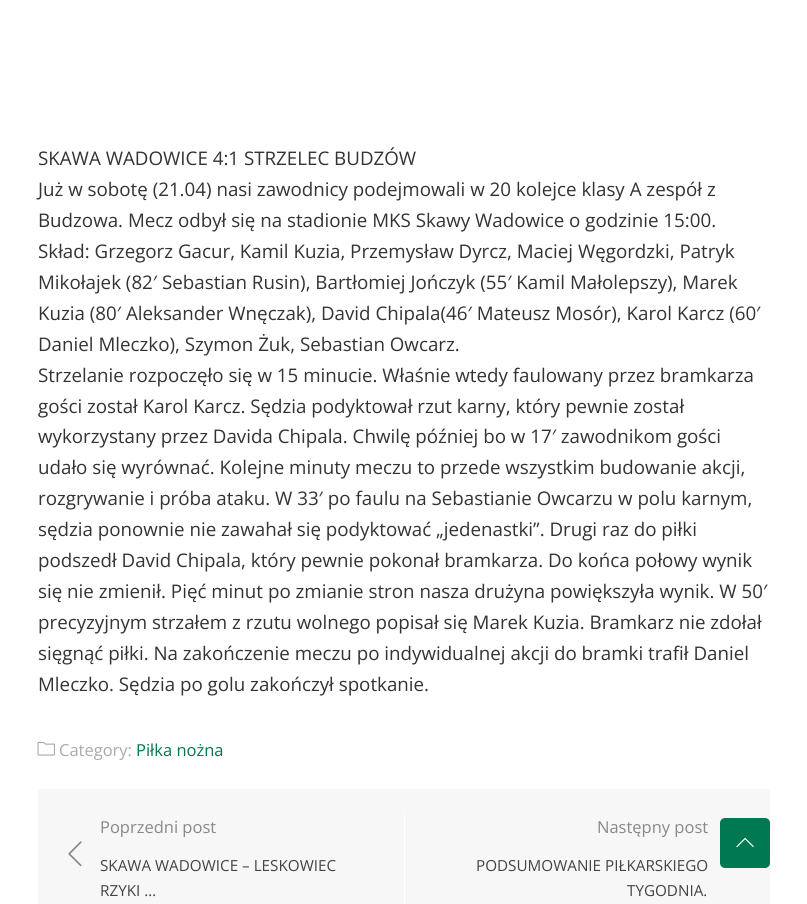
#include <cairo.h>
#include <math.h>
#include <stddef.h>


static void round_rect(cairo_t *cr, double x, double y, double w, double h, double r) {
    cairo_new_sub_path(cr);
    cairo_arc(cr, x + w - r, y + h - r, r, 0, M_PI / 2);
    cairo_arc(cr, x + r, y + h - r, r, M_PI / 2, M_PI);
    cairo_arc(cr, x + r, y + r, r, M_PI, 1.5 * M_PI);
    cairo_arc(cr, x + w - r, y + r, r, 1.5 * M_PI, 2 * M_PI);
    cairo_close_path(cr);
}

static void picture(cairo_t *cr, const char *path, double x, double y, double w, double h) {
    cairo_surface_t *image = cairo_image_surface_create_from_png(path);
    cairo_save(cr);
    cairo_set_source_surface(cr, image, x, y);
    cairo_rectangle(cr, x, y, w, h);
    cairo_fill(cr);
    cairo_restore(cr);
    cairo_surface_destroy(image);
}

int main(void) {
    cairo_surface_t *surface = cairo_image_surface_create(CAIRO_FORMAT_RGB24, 807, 904);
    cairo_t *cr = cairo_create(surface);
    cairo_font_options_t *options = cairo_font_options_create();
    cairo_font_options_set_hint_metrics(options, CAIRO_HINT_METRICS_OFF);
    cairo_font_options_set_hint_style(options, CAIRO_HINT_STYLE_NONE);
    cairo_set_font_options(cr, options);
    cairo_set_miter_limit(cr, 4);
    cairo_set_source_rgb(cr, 1, 1, 1);
    cairo_paint(cr);
    cairo_select_font_face(cr, "Open Sans", CAIRO_FONT_SLANT_NORMAL, CAIRO_FONT_WEIGHT_NORMAL);
    cairo_set_font_size(cr, 18.75);
    cairo_set_source_rgb(cr, 0.2, 0.2, 0.2);
    cairo_move_to(cr, 38, 165);
    cairo_show_text(cr, "SKAWA WADOWICE 4:1 STRZELEC BUDZÓW");
    cairo_move_to(cr, 38, 196);
    cairo_show_text(cr, "Już w sobotę (21.04) nasi zawodnicy podejmowali w 20 kolejce klasy A zespół z");
    cairo_move_to(cr, 38, 227);
    cairo_show_text(cr, "Budzowa. Mecz odbył się na stadionie MKS Skawy Wadowice o godzinie 15:00.");
    cairo_move_to(cr, 38, 258);
    cairo_show_text(cr, "Skład: Grzegorz Gacur, Kamil Kuzia, Przemysław Dyrcz, Maciej Węgordzki, Patryk");
    cairo_move_to(cr, 38, 289);
    cairo_show_text(cr, "Mikołajek (82′ Sebastian Rusin), Bartłomiej Jończyk (55′ Kamil Małolepszy), Marek");
    cairo_move_to(cr, 38, 320);
    cairo_show_text(cr, "Kuzia (80′ Aleksander Wnęczak), David Chipala(46′ Mateusz Mosór), Karol Karcz (60′");
    cairo_move_to(cr, 38, 351);
    cairo_show_text(cr, "Daniel Mleczko), Szymon Żuk, Sebastian Owcarz.");
    cairo_move_to(cr, 38, 382);
    cairo_show_text(cr, "Strzelanie rozpoczęło się w 15 minucie. Właśnie wtedy faulowany przez bramkarza");
    cairo_move_to(cr, 38, 413);
    cairo_show_text(cr, "gości został Karol Karcz. Sędzia podyktował rzut karny, który pewnie został");
    cairo_move_to(cr, 38, 443);
    cairo_show_text(cr, "wykorzystany przez Davida Chipala. Chwilę później bo w 17′ zawodnikom gości");
    cairo_move_to(cr, 38, 474);
    cairo_show_text(cr, "udało się wyrównać. Kolejne minuty meczu to przede wszystkim budowanie akcji,");
    cairo_move_to(cr, 38, 505);
    cairo_show_text(cr, "rozgrywanie i próba ataku. W 33′ po faulu na Sebastianie Owcarzu w polu karnym,");
    cairo_move_to(cr, 38, 536);
    cairo_show_text(cr, "sędzia ponownie nie zawahał się podyktować „jedenastki”. Drugi raz do piłki");
    cairo_move_to(cr, 38, 567);
    cairo_show_text(cr, "podszedł David Chipala, który pewnie pokonał bramkarza. Do końca połowy wynik");
    cairo_move_to(cr, 38, 598);
    cairo_show_text(cr, "się nie zmienił. Pięć minut po zmianie stron nasza drużyna powiększyła wynik. W 50′");
    cairo_move_to(cr, 38, 629);
    cairo_show_text(cr, "precyzyjnym strzałem z rzutu wolnego popisał się Marek Kuzia. Bramkarz nie zdołał");
    cairo_move_to(cr, 38, 660);
    cairo_show_text(cr, "sięgnąć piłki. Na zakończenie meczu po indywidualnej akcji do bramki trafił Daniel");
    cairo_move_to(cr, 38, 691);
    cairo_show_text(cr, "Mleczko. Sędzia po golu zakończył spotkanie.");
    picture(cr, "img1.png", 37, 741, 18, 15);
    cairo_set_font_size(cr, 16.5);
    cairo_set_source_rgb(cr, 0.667, 0.667, 0.667);
    cairo_move_to(cr, 59, 756);
    cairo_show_text(cr, "Category:");
    cairo_set_source_rgb(cr, 0, 0.471, 0.318);
    cairo_move_to(cr, 136, 756);
    cairo_show_text(cr, "Piłka nożna");
    cairo_set_source_rgb(cr, 0.965, 0.965, 0.965);
    round_rect(cr, 38, 789, 732, 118, 2.5);
    cairo_fill(cr);
    cairo_set_source_rgb(cr, 0.533, 0.533, 0.533);
    cairo_move_to(cr, 100, 833);
    cairo_show_text(cr, "Poprzedni post");
    picture(cr, "img2.png", 68, 841, 14, 26);
    cairo_set_font_size(cr, 15.25);
    cairo_set_source_rgb(cr, 0.267, 0.267, 0.267);
    cairo_move_to(cr, 100, 871);
    cairo_show_text(cr, "SKAWA WADOWICE – LESKOWIEC");
    cairo_move_to(cr, 100, 896);
    cairo_show_text(cr, "RZYKI …");
    cairo_set_source_rgb(cr, 1, 1, 1);
    cairo_rectangle(cr, 404, 814, 1, 90);
    cairo_fill(cr);
    cairo_set_font_size(cr, 16.5);
    cairo_set_source_rgb(cr, 0.533, 0.533, 0.533);
    cairo_move_to(cr, 597, 833);
    cairo_show_text(cr, "Następny post");
    cairo_set_font_size(cr, 15.25);
    cairo_set_source_rgb(cr, 0.267, 0.267, 0.267);
    cairo_move_to(cr, 476, 871);
    cairo_show_text(cr, "PODSUMOWANIE PIŁKARSKIEGO");
    cairo_move_to(cr, 627, 896);
    cairo_show_text(cr, "TYGODNIA.");
    cairo_set_source_rgb(cr, 0, 0.471, 0.318);
    round_rect(cr, 720, 818, 50, 50, 5);
    cairo_fill(cr);
    picture(cr, "img3.png", 736, 837, 18, 11);
    cairo_surface_write_to_png(surface, "page.png");
    cairo_font_options_destroy(options);
    cairo_destroy(cr);
    cairo_surface_destroy(surface);
    return 0;
}
